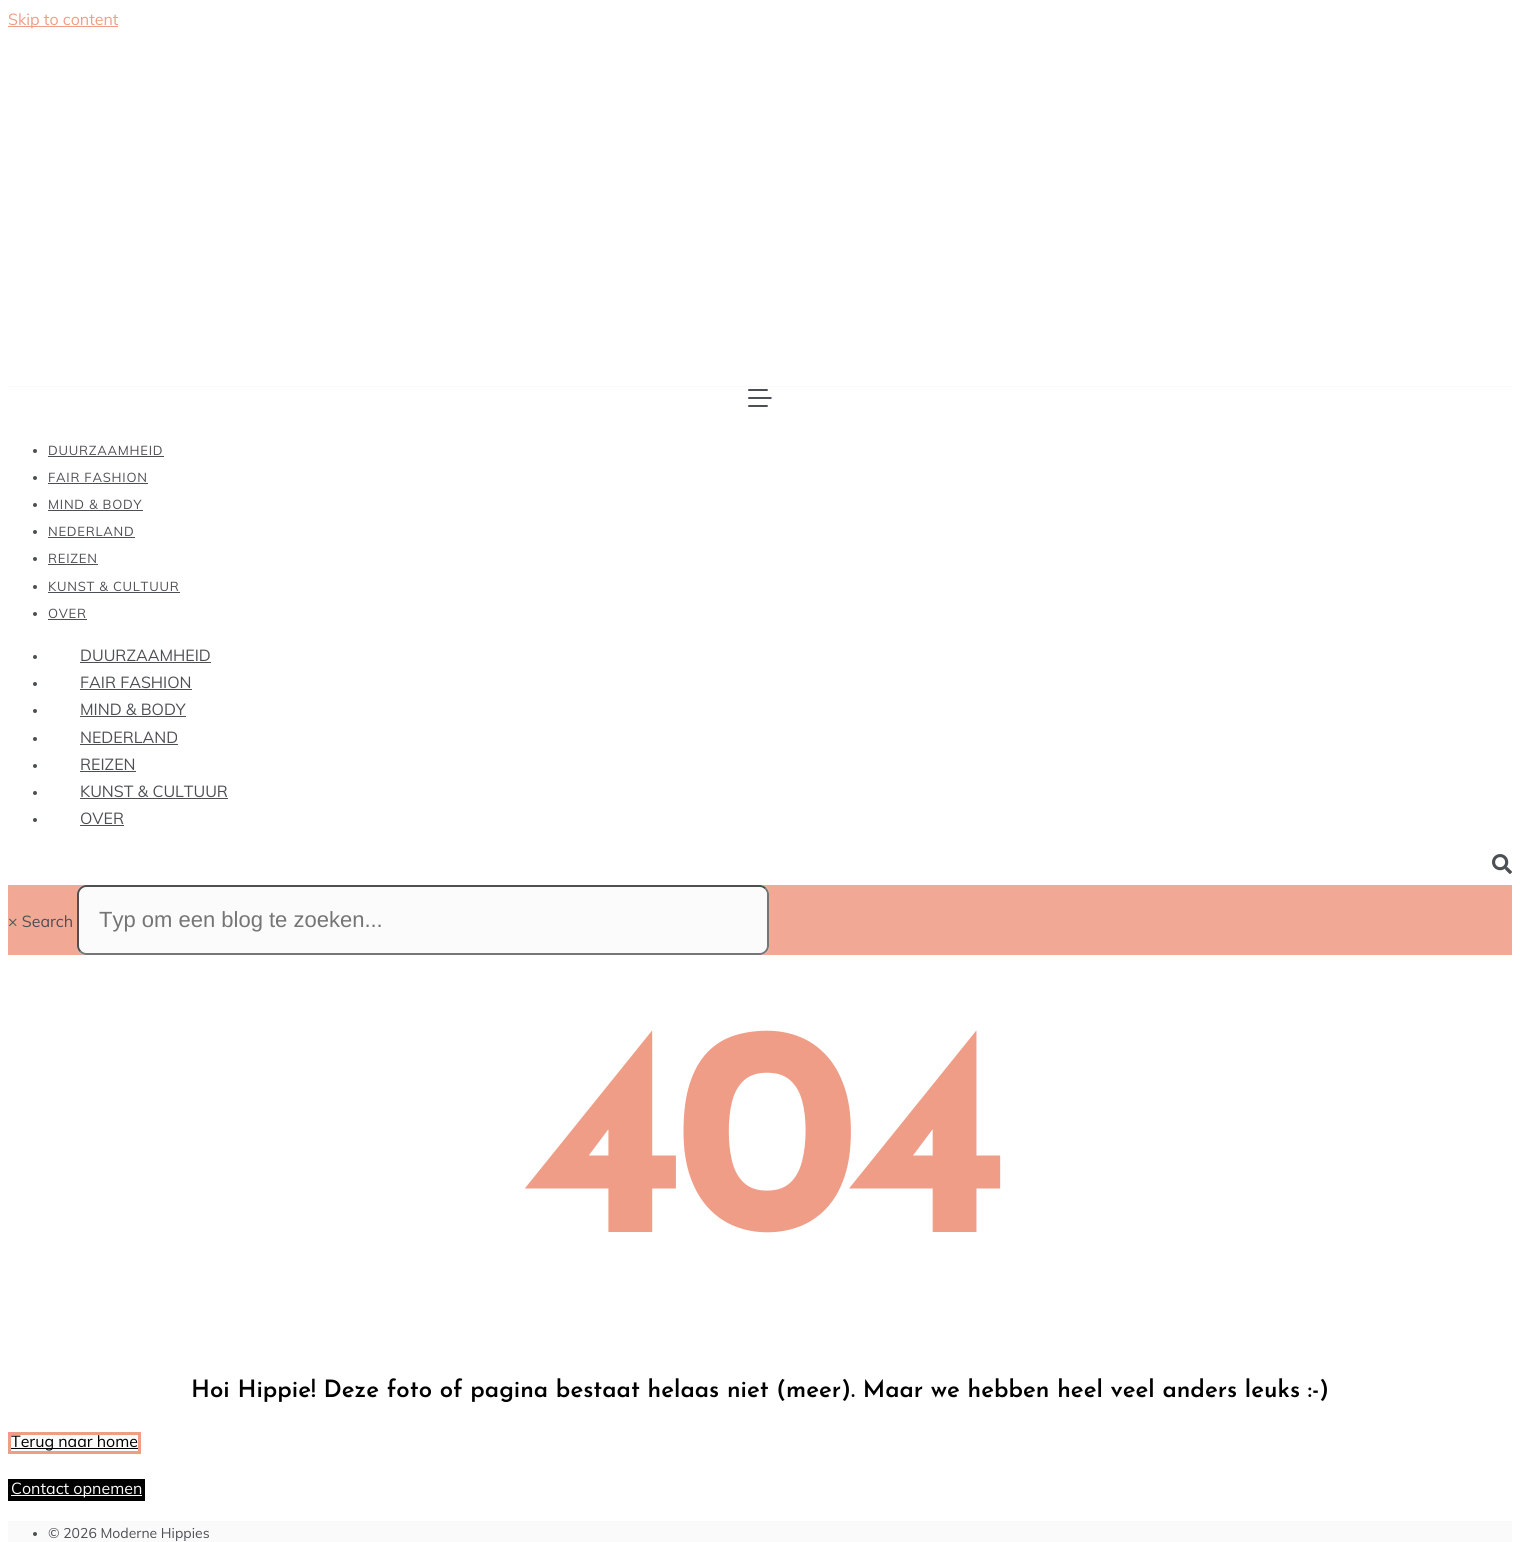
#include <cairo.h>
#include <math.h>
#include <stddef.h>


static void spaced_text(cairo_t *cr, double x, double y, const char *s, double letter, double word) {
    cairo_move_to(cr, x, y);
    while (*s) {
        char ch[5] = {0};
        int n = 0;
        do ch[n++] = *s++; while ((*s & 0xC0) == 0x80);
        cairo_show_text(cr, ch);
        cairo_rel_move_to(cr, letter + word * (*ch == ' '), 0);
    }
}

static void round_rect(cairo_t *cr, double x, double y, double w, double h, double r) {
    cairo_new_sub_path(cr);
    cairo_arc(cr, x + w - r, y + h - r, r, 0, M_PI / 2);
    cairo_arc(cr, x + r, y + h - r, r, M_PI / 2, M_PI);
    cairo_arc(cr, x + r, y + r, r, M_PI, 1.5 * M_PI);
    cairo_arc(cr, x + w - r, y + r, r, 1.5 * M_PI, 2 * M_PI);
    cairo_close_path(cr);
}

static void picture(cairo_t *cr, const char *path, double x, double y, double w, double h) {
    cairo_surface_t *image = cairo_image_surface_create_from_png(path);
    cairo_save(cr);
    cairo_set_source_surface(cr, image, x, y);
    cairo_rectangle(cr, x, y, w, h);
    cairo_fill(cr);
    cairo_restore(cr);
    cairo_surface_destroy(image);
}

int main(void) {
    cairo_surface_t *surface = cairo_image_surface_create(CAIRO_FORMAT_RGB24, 1520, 1542);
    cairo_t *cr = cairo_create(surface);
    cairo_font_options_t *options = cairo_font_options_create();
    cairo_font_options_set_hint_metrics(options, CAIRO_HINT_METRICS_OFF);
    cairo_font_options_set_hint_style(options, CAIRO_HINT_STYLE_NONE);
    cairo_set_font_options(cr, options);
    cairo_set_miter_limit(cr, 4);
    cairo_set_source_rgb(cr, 1, 1, 1);
    cairo_paint(cr);
    cairo_set_source_rgb(cr, 0.945, 0.663, 0.584);
    cairo_rectangle(cr, 8, 885, 1504, 70);
    cairo_fill(cr);
    cairo_set_source_rgb(cr, 0.937, 0.616, 0.529);
    cairo_rectangle(cr, 8, 26, 110, 1);
    cairo_fill(cr);
    cairo_select_font_face(cr, "Muli", CAIRO_FONT_SLANT_NORMAL, CAIRO_FONT_WEIGHT_NORMAL);
    cairo_set_font_size(cr, 16);
    cairo_move_to(cr, 8, 25);
    cairo_show_text(cr, "Skip to content");
    cairo_set_source_rgb(cr, 0.98, 0.98, 0.98);
    cairo_rectangle(cr, 8, 386, 1504, 1);
    cairo_fill(cr);
    picture(cr, "img1.png", 748, 389, 24, 18);
    cairo_set_source_rgb(cr, 0.298, 0.31, 0.325);
    cairo_arc(cr, 35, 451, 2, 0, 2 * M_PI);
    cairo_fill(cr);
    cairo_set_font_size(cr, 13);
    spaced_text(cr, 48, 455, "DUURZAAMHEID", 0.75, 0);
    cairo_rectangle(cr, 48, 456, 116, 1);
    cairo_fill(cr);
    cairo_arc(cr, 35, 478, 2, 0, 2 * M_PI);
    cairo_fill(cr);
    spaced_text(cr, 48, 482, "FAIR FASHION", 0.75, 0);
    cairo_rectangle(cr, 48, 483, 100, 1);
    cairo_fill(cr);
    cairo_arc(cr, 35, 505, 2, 0, 2 * M_PI);
    cairo_fill(cr);
    spaced_text(cr, 48, 509, "MIND & BODY", 0.75, 0);
    cairo_rectangle(cr, 48, 510, 95, 1);
    cairo_fill(cr);
    cairo_arc(cr, 35, 532, 2, 0, 2 * M_PI);
    cairo_fill(cr);
    spaced_text(cr, 48, 536, "NEDERLAND", 0.75, 0);
    cairo_rectangle(cr, 48, 537, 87, 1);
    cairo_fill(cr);
    cairo_arc(cr, 35, 559, 2, 0, 2 * M_PI);
    cairo_fill(cr);
    spaced_text(cr, 48, 563, "REIZEN", 0.75, 0);
    cairo_rectangle(cr, 48, 564, 50, 1);
    cairo_fill(cr);
    cairo_arc(cr, 35, 587, 2, 0, 2 * M_PI);
    cairo_fill(cr);
    spaced_text(cr, 48, 591, "KUNST & CULTUUR", 0.75, 0);
    cairo_rectangle(cr, 48, 592, 132, 1);
    cairo_fill(cr);
    cairo_arc(cr, 35, 614, 2, 0, 2 * M_PI);
    cairo_fill(cr);
    spaced_text(cr, 48, 618, "OVER", 0.75, 0);
    cairo_rectangle(cr, 48, 619, 39, 1);
    cairo_fill(cr);
    cairo_arc(cr, 35, 657, 2, 0, 2 * M_PI);
    cairo_fill(cr);
    cairo_set_font_size(cr, 16);
    cairo_move_to(cr, 80, 661);
    cairo_show_text(cr, "DUURZAAMHEID");
    cairo_rectangle(cr, 80, 662, 131, 1);
    cairo_fill(cr);
    cairo_arc(cr, 35, 684, 2, 0, 2 * M_PI);
    cairo_fill(cr);
    cairo_move_to(cr, 80, 688);
    cairo_show_text(cr, "FAIR FASHION");
    cairo_rectangle(cr, 80, 689, 112, 1);
    cairo_fill(cr);
    cairo_arc(cr, 35, 711, 2, 0, 2 * M_PI);
    cairo_fill(cr);
    cairo_move_to(cr, 80, 715);
    cairo_show_text(cr, "MIND & BODY");
    cairo_rectangle(cr, 80, 716, 106, 1);
    cairo_fill(cr);
    cairo_arc(cr, 35, 739, 2, 0, 2 * M_PI);
    cairo_fill(cr);
    cairo_move_to(cr, 80, 743);
    cairo_show_text(cr, "NEDERLAND");
    cairo_rectangle(cr, 80, 744, 98, 1);
    cairo_fill(cr);
    cairo_arc(cr, 35, 766, 2, 0, 2 * M_PI);
    cairo_fill(cr);
    cairo_move_to(cr, 80, 770);
    cairo_show_text(cr, "REIZEN");
    cairo_rectangle(cr, 80, 771, 56, 1);
    cairo_fill(cr);
    cairo_arc(cr, 35, 793, 2, 0, 2 * M_PI);
    cairo_fill(cr);
    cairo_move_to(cr, 80, 797);
    cairo_show_text(cr, "KUNST & CULTUUR");
    cairo_rectangle(cr, 80, 798, 148, 1);
    cairo_fill(cr);
    cairo_arc(cr, 35, 820, 2, 0, 2 * M_PI);
    cairo_fill(cr);
    cairo_move_to(cr, 80, 824);
    cairo_show_text(cr, "OVER");
    cairo_rectangle(cr, 80, 825, 44, 1);
    cairo_fill(cr);
    picture(cr, "img2.png", 1492, 854, 20, 20);
    cairo_move_to(cr, 8, 927);
    cairo_show_text(cr, "× Search");
    cairo_set_source_rgb(cr, 0.984, 0.984, 0.984);
    round_rect(cr, 77, 885, 692, 70, 9);
    cairo_fill(cr);
    cairo_new_path(cr);
    cairo_move_to(cr, 765.5, 888.5);
    cairo_curve_to(cr, 767, 890, 768, 892, 768, 894);
    cairo_line_to(cr, 768, 946);
    cairo_curve_to(cr, 768, 948, 767, 950, 765.5, 951.5);
    cairo_curve_to(cr, 764, 953, 762, 954, 760, 954);
    cairo_line_to(cr, 86, 954);
    cairo_curve_to(cr, 84, 954, 82, 953, 80.5, 951.5);
    cairo_set_source_rgb(cr, 0.463, 0.463, 0.463);
    cairo_stroke(cr);
    cairo_new_path(cr);
    cairo_move_to(cr, 80.5, 951.5);
    cairo_curve_to(cr, 79, 950, 78, 948, 78, 946);
    cairo_line_to(cr, 78, 894);
    cairo_curve_to(cr, 78, 892, 79, 890, 80.5, 888.5);
    cairo_curve_to(cr, 82, 887, 84, 886, 86, 886);
    cairo_line_to(cr, 760, 886);
    cairo_curve_to(cr, 762, 886, 764, 887, 765.5, 888.5);
    cairo_set_source_rgb(cr, 0.31, 0.31, 0.31);
    cairo_stroke(cr);
    cairo_select_font_face(cr, "Liberation Sans", CAIRO_FONT_SLANT_NORMAL, CAIRO_FONT_WEIGHT_NORMAL);
    cairo_set_font_size(cr, 22);
    cairo_set_source_rgb(cr, 0.459, 0.459, 0.459);
    cairo_move_to(cr, 99, 927);
    cairo_show_text(cr, "Typ om een blog te zoeken...");
    cairo_select_font_face(cr, "Josefin Sans Thin", CAIRO_FONT_SLANT_NORMAL, CAIRO_FONT_WEIGHT_NORMAL);
    cairo_set_font_size(cr, 300);
    cairo_set_source_rgb(cr, 0.937, 0.616, 0.529);
    spaced_text(cr, 522, 1232, "404", -15, 0);
    cairo_select_font_face(cr, "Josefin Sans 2 Thin", CAIRO_FONT_SLANT_NORMAL, CAIRO_FONT_WEIGHT_NORMAL);
    cairo_set_font_size(cr, 24);
    cairo_set_source_rgb(cr, 0, 0, 0);
    cairo_move_to(cr, 191, 1397);
    cairo_show_text(cr, "Hoi Hippie! Deze foto of pagina bestaat helaas niet (meer). Maar we hebben heel veel anders leuks :-)");
    cairo_set_source_rgb(cr, 0.984, 0.984, 0.984);
    cairo_rectangle(cr, 9.5, 1433.5, 130, 19);
    cairo_fill_preserve(cr);
    cairo_set_source_rgb(cr, 0.937, 0.616, 0.529);
    cairo_set_line_width(cr, 3);
    cairo_stroke(cr);
    cairo_set_source_rgb(cr, 0, 0, 0);
    cairo_rectangle(cr, 11, 1448, 127, 1);
    cairo_fill(cr);
    cairo_select_font_face(cr, "Muli", CAIRO_FONT_SLANT_NORMAL, CAIRO_FONT_WEIGHT_NORMAL);
    cairo_set_font_size(cr, 16);
    cairo_move_to(cr, 11, 1447);
    cairo_show_text(cr, "Terug naar home");
    cairo_rectangle(cr, 8, 1479, 137, 22);
    cairo_fill(cr);
    cairo_set_source_rgb(cr, 0.984, 0.984, 0.984);
    cairo_rectangle(cr, 11, 1495, 131, 1);
    cairo_fill(cr);
    cairo_move_to(cr, 11, 1494);
    cairo_show_text(cr, "Contact opnemen");
    cairo_set_source_rgb(cr, 0.98, 0.98, 0.98);
    cairo_rectangle(cr, 8, 1521, 1504, 21);
    cairo_fill(cr);
    cairo_set_source_rgb(cr, 0.298, 0.31, 0.325);
    cairo_arc(cr, 35, 1534, 2, 0, 2 * M_PI);
    cairo_fill(cr);
    cairo_set_font_size(cr, 14);
    cairo_move_to(cr, 48, 1538);
    cairo_show_text(cr, "© 2026 Moderne Hippies");
    cairo_surface_write_to_png(surface, "page.png");
    cairo_font_options_destroy(options);
    cairo_destroy(cr);
    cairo_surface_destroy(surface);
    return 0;
}
